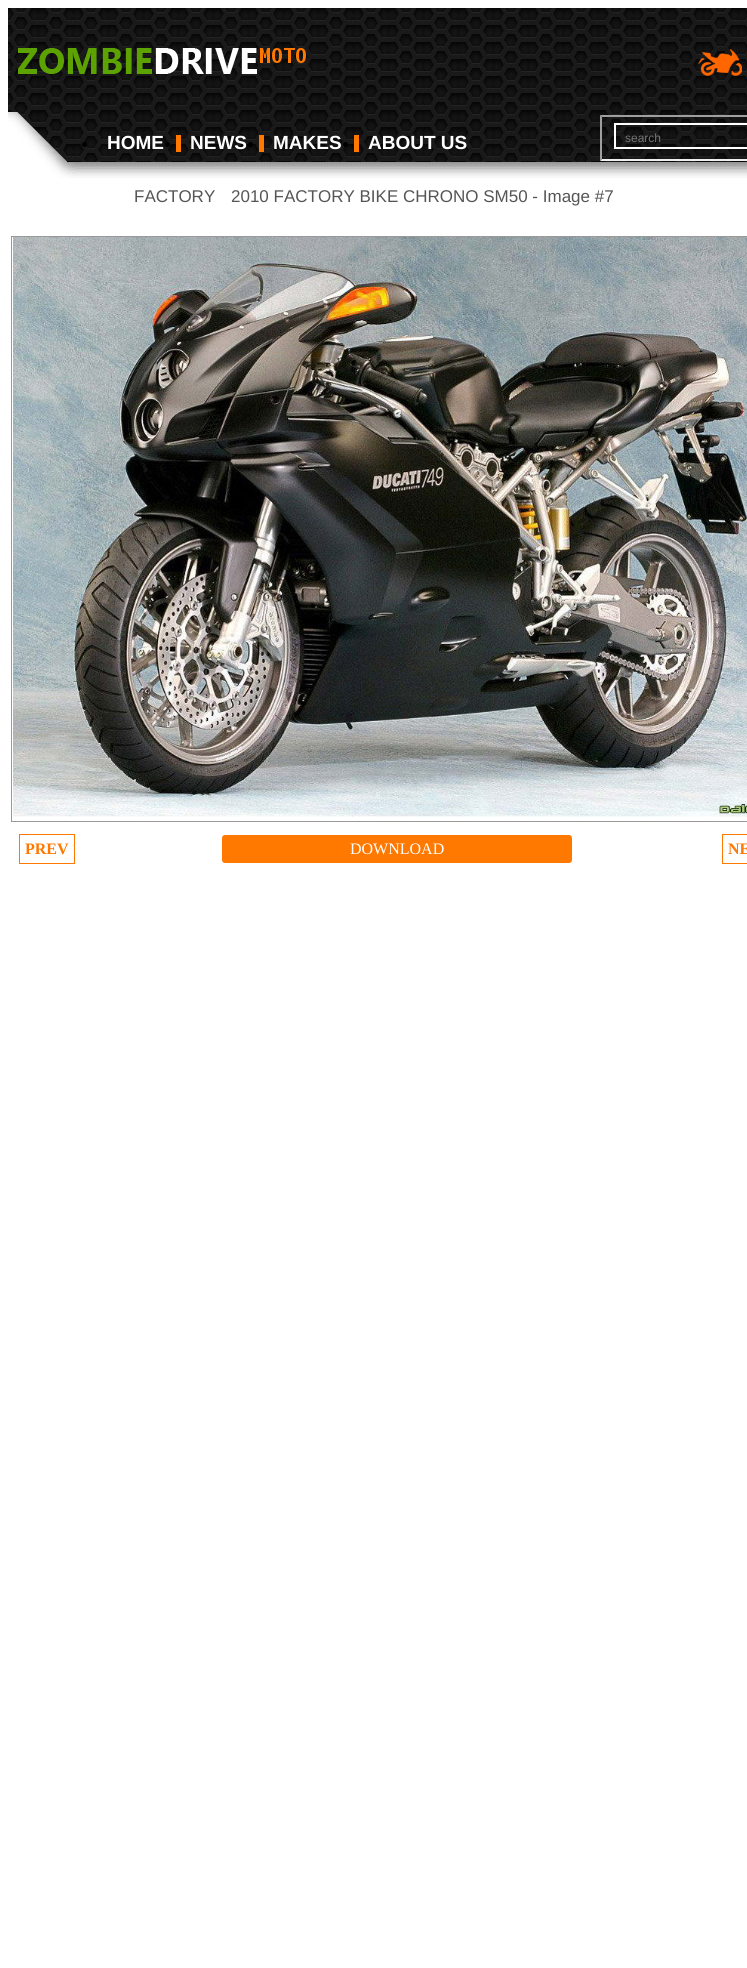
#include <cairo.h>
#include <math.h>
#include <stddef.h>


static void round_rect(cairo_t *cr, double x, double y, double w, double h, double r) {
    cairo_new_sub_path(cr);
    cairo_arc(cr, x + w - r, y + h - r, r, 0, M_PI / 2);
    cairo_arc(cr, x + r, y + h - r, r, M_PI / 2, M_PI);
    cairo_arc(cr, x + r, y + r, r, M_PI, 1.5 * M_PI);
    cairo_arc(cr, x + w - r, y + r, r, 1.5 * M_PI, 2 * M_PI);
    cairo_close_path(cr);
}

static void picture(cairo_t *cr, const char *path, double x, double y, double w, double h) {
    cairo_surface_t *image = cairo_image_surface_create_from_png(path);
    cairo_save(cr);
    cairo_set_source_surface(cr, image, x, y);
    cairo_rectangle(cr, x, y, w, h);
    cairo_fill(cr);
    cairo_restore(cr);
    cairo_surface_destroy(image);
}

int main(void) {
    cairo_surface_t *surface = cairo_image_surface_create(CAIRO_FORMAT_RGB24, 747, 1968);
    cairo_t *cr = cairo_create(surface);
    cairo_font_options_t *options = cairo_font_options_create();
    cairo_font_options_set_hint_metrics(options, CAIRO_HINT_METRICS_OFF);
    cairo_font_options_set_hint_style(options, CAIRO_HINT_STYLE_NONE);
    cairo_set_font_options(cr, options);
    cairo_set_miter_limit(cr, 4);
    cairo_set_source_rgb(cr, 1, 1, 1);
    cairo_paint(cr);
    picture(cr, "img1.png", 8, 8, 739, 170);
    picture(cr, "img2.png", 18, 48, 288, 26);
    picture(cr, "img3.png", 698, 49, 44, 27);
    cairo_set_source_rgb(cr, 0, 0, 0);
    cairo_arc(cr, 84.5, 144.5, 2.5, 0, 2 * M_PI);
    cairo_fill(cr);
    cairo_select_font_face(cr, "Liberation Sans", CAIRO_FONT_SLANT_NORMAL, CAIRO_FONT_WEIGHT_BOLD);
    cairo_set_font_size(cr, 19);
    cairo_set_source_rgb(cr, 1, 1, 1);
    cairo_move_to(cr, 107, 149);
    cairo_show_text(cr, "HOME");
    cairo_set_source_rgb(cr, 1, 0.471, 0);
    cairo_rectangle(cr, 176, 135, 5, 17);
    cairo_fill(cr);
    cairo_set_source_rgb(cr, 0, 0, 0);
    cairo_arc(cr, 167.5, 144.5, 2.5, 0, 2 * M_PI);
    cairo_fill(cr);
    cairo_set_source_rgb(cr, 1, 1, 1);
    cairo_move_to(cr, 190, 149);
    cairo_show_text(cr, "NEWS");
    cairo_set_source_rgb(cr, 1, 0.471, 0);
    cairo_rectangle(cr, 259, 135, 5, 17);
    cairo_fill(cr);
    cairo_set_source_rgb(cr, 0, 0, 0);
    cairo_arc(cr, 250.5, 144.5, 2.5, 0, 2 * M_PI);
    cairo_fill(cr);
    cairo_set_source_rgb(cr, 1, 1, 1);
    cairo_move_to(cr, 273, 149);
    cairo_show_text(cr, "MAKES");
    cairo_set_source_rgb(cr, 1, 0.471, 0);
    cairo_rectangle(cr, 354, 135, 5, 17);
    cairo_fill(cr);
    cairo_set_source_rgb(cr, 0, 0, 0);
    cairo_arc(cr, 345.5, 144.5, 2.5, 0, 2 * M_PI);
    cairo_fill(cr);
    cairo_set_source_rgb(cr, 1, 1, 1);
    cairo_move_to(cr, 368, 149);
    cairo_show_text(cr, "ABOUT US");
    cairo_set_source_rgb(cr, 0.624, 0.624, 0.624);
    cairo_new_path(cr);
    cairo_move_to(cr, 600, 115);
    cairo_line_to(cr, 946, 115);
    cairo_line_to(cr, 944, 117);
    cairo_line_to(cr, 602, 117);
    cairo_close_path(cr);
    cairo_fill(cr);
    cairo_set_source_rgb(cr, 0.937, 0.937, 0.937);
    cairo_new_path(cr);
    cairo_move_to(cr, 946, 161);
    cairo_line_to(cr, 600, 161);
    cairo_line_to(cr, 602, 159);
    cairo_line_to(cr, 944, 159);
    cairo_close_path(cr);
    cairo_fill(cr);
    cairo_set_source_rgb(cr, 0.624, 0.624, 0.624);
    cairo_new_path(cr);
    cairo_move_to(cr, 600, 161);
    cairo_line_to(cr, 600, 115);
    cairo_line_to(cr, 602, 117);
    cairo_line_to(cr, 602, 159);
    cairo_close_path(cr);
    cairo_fill(cr);
    cairo_rectangle(cr, 615, 124, 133, 24);
    cairo_set_source_rgb(cr, 1, 1, 1);
    cairo_stroke(cr);
    cairo_select_font_face(cr, "Liberation Sans", CAIRO_FONT_SLANT_NORMAL, CAIRO_FONT_WEIGHT_NORMAL);
    cairo_set_font_size(cr, 12);
    cairo_set_source_rgb(cr, 0.459, 0.459, 0.459);
    cairo_move_to(cr, 625, 142);
    cairo_show_text(cr, "search");
    cairo_set_font_size(cr, 17);
    cairo_set_source_rgb(cr, 0.333, 0.333, 0.333);
    cairo_move_to(cr, 134, 202);
    cairo_show_text(cr, "FACTORY");
    cairo_move_to(cr, 231, 202);
    cairo_show_text(cr, "2010 FACTORY BIKE CHRONO SM50 - Image #7");
    cairo_rectangle(cr, 11.5, 236.5, 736, 585);
    cairo_set_source_rgb(cr, 0.6, 0.6, 0.6);
    cairo_set_line_width(cr, 1);
    cairo_stroke(cr);
    picture(cr, "img4.png", 13, 237, 734, 580);
    cairo_rectangle(cr, 19.5, 834.5, 55, 29);
    cairo_set_source_rgb(cr, 1, 0.471, 0);
    cairo_stroke(cr);
    cairo_select_font_face(cr, "Liberation Serif", CAIRO_FONT_SLANT_NORMAL, CAIRO_FONT_WEIGHT_BOLD);
    cairo_set_font_size(cr, 16);
    cairo_move_to(cr, 25, 854);
    cairo_show_text(cr, "PREV");
    round_rect(cr, 222, 835, 350, 28, 3);
    cairo_fill(cr);
    cairo_select_font_face(cr, "Liberation Serif", CAIRO_FONT_SLANT_NORMAL, CAIRO_FONT_WEIGHT_NORMAL);
    cairo_set_source_rgb(cr, 1, 1, 1);
    cairo_move_to(cr, 350, 854);
    cairo_show_text(cr, "DOWNLOAD");
    cairo_rectangle(cr, 722.5, 834.5, 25, 29);
    cairo_set_source_rgb(cr, 1, 0.471, 0);
    cairo_stroke(cr);
    cairo_select_font_face(cr, "Liberation Serif", CAIRO_FONT_SLANT_NORMAL, CAIRO_FONT_WEIGHT_BOLD);
    cairo_move_to(cr, 728, 854);
    cairo_show_text(cr, "NE");
    cairo_surface_write_to_png(surface, "page.png");
    cairo_font_options_destroy(options);
    cairo_destroy(cr);
    cairo_surface_destroy(surface);
    return 0;
}
